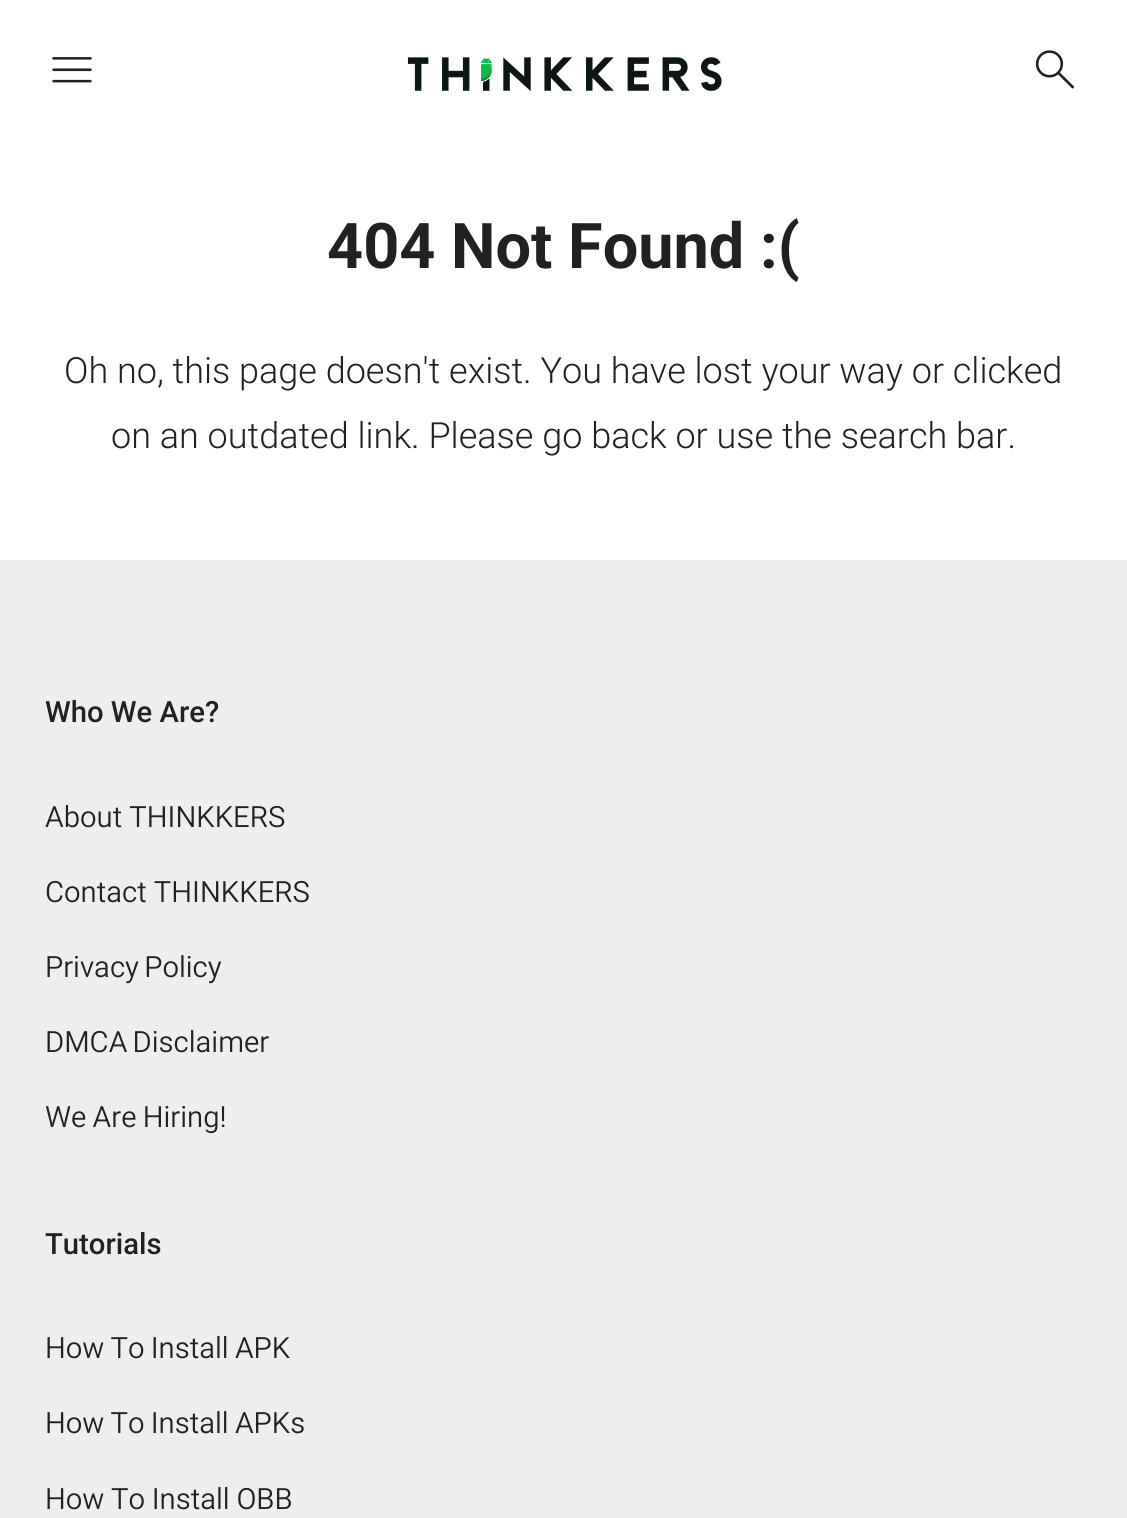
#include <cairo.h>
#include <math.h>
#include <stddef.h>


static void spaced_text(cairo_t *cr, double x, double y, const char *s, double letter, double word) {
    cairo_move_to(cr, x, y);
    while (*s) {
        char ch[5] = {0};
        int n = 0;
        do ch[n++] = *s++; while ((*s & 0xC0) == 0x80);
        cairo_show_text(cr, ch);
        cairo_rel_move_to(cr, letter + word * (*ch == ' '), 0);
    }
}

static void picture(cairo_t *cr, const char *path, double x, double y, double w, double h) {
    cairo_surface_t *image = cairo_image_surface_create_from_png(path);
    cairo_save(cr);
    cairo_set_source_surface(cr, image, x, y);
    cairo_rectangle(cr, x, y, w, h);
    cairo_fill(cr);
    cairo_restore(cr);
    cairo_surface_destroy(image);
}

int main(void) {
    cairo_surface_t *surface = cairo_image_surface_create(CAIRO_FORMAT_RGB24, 1127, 1518);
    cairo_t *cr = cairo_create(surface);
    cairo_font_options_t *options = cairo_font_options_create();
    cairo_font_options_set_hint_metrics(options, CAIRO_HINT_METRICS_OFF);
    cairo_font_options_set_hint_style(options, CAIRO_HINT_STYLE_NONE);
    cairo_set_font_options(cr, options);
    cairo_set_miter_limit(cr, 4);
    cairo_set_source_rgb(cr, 1, 1, 1);
    cairo_paint(cr);
    picture(cr, "img1.png", 52, 57, 40, 26);
    picture(cr, "img2.png", 407, 57, 315, 34);
    picture(cr, "img3.png", 1035, 50, 40, 39);
    cairo_select_font_face(cr, "Roboto", CAIRO_FONT_SLANT_NORMAL, CAIRO_FONT_WEIGHT_BOLD);
    cairo_set_font_size(cr, 63);
    cairo_set_source_rgb(cr, 0.129, 0.129, 0.129);
    cairo_move_to(cr, 327, 268);
    cairo_show_text(cr, "404 Not Found :(");
    cairo_select_font_face(cr, "Roboto Light", CAIRO_FONT_SLANT_NORMAL, CAIRO_FONT_WEIGHT_NORMAL);
    cairo_set_font_size(cr, 36);
    cairo_move_to(cr, 64, 383);
    cairo_show_text(cr, "Oh no, this page doesn't exist. You have lost your way or clicked");
    cairo_move_to(cr, 111, 448);
    cairo_show_text(cr, "on an outdated link. Please go back or use the search bar.");
    cairo_set_source_rgb(cr, 0.933, 0.933, 0.933);
    cairo_rectangle(cr, 0, 560, 1127, 958);
    cairo_fill(cr);
    cairo_select_font_face(cr, "Roboto Medium", CAIRO_FONT_SLANT_NORMAL, CAIRO_FONT_WEIGHT_NORMAL);
    cairo_set_font_size(cr, 29.25);
    cairo_set_source_rgb(cr, 0.129, 0.129, 0.129);
    cairo_move_to(cr, 45, 722);
    cairo_show_text(cr, "Who We Are?");
    cairo_select_font_face(cr, "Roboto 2 Light", CAIRO_FONT_SLANT_NORMAL, CAIRO_FONT_WEIGHT_NORMAL);
    cairo_move_to(cr, 45, 827);
    cairo_show_text(cr, "About THINKKERS");
    cairo_move_to(cr, 45, 902);
    cairo_show_text(cr, "Contact THINKKERS");
    spaced_text(cr, 45, 977, "Privacy Policy", 0, -2);
    spaced_text(cr, 45, 1052, "DMCA Disclaimer", 0, -2);
    spaced_text(cr, 45, 1127, "We Are Hiring!", 0, -1);
    cairo_select_font_face(cr, "Roboto Medium", CAIRO_FONT_SLANT_NORMAL, CAIRO_FONT_WEIGHT_NORMAL);
    cairo_move_to(cr, 45, 1254);
    cairo_show_text(cr, "Tutorials");
    cairo_select_font_face(cr, "Roboto 2 Light", CAIRO_FONT_SLANT_NORMAL, CAIRO_FONT_WEIGHT_NORMAL);
    spaced_text(cr, 45, 1358, "How To Install APK", 0, -1);
    spaced_text(cr, 45, 1433, "How To Install APKs", 0, -1);
    spaced_text(cr, 45, 1509, "How To Install OBB", 0, -0.5);
    cairo_surface_write_to_png(surface, "page.png");
    cairo_font_options_destroy(options);
    cairo_destroy(cr);
    cairo_surface_destroy(surface);
    return 0;
}
